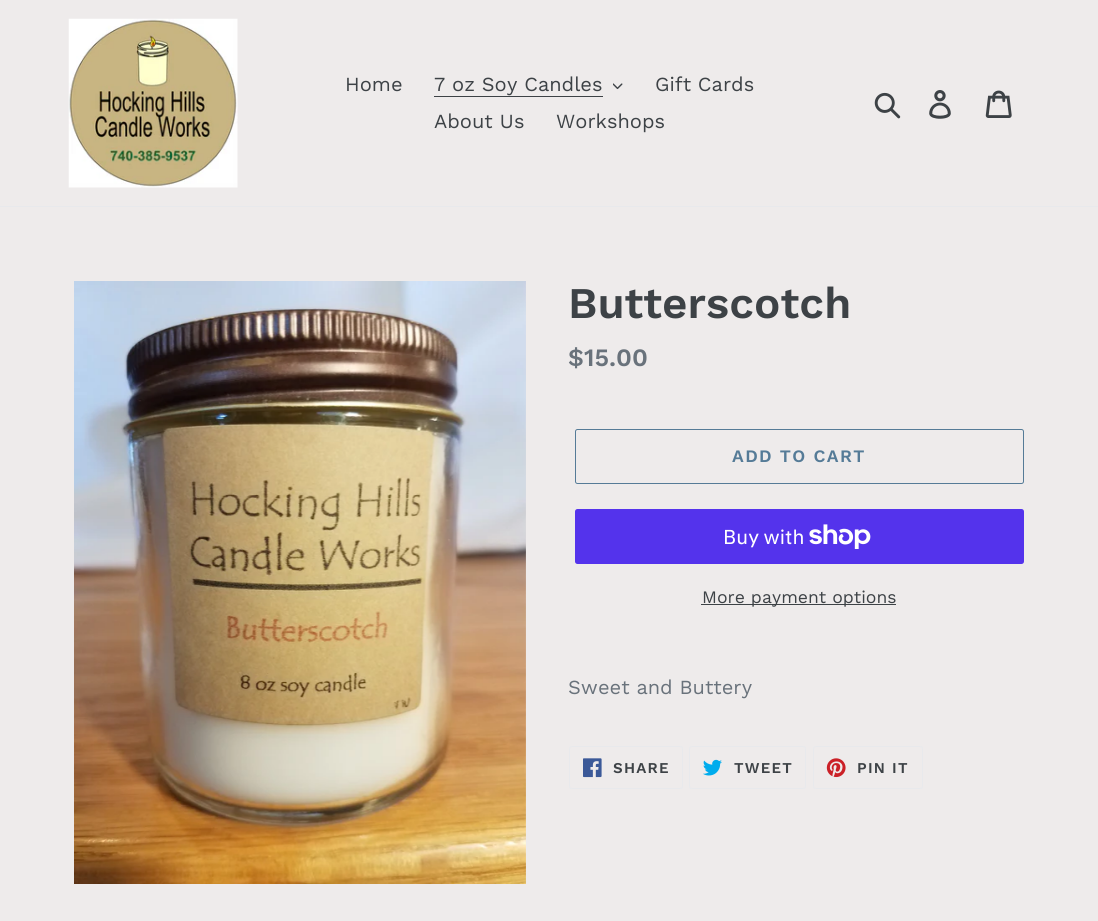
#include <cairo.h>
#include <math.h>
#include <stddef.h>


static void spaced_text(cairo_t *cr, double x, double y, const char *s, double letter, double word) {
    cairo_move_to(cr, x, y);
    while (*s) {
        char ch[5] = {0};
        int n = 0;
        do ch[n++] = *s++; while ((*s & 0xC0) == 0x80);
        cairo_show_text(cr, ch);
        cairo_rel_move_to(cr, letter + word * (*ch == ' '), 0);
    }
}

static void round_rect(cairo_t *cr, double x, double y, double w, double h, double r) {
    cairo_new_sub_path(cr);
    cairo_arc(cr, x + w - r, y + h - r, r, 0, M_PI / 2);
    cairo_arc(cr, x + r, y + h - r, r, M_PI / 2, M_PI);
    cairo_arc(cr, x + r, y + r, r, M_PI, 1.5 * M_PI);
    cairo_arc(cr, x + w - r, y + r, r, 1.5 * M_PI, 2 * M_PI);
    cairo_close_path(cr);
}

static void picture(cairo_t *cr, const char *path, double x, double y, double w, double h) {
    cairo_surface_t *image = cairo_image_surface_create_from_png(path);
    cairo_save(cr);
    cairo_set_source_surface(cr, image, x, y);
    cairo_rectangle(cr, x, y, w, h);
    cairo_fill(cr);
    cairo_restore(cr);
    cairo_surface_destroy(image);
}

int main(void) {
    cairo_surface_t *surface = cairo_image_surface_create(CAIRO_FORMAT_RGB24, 1098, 921);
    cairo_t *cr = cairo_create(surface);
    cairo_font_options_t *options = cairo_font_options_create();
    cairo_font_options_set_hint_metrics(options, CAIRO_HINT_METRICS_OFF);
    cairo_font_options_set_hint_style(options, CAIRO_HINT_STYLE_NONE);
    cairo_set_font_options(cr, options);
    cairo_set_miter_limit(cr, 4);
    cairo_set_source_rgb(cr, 0.933, 0.918, 0.918);
    cairo_paint(cr);
    cairo_set_source_rgb(cr, 0.91, 0.914, 0.922);
    cairo_rectangle(cr, 0, 206, 1098, 1);
    cairo_fill(cr);
    picture(cr, "img1.png", 68, 18, 170, 170);
    cairo_select_font_face(cr, "Work Sans", CAIRO_FONT_SLANT_NORMAL, CAIRO_FONT_WEIGHT_NORMAL);
    cairo_set_font_size(cr, 20);
    cairo_set_source_rgb(cr, 0.239, 0.259, 0.275);
    cairo_move_to(cr, 345, 91);
    cairo_show_text(cr, "Home");
    cairo_move_to(cr, 434, 91);
    cairo_show_text(cr, "7 oz Soy Candles");
    cairo_rectangle(cr, 434, 96, 169, 1);
    cairo_fill(cr);
    picture(cr, "img2.png", 613, 83, 10, 7);
    cairo_move_to(cr, 655, 91);
    cairo_show_text(cr, "Gift Cards");
    cairo_move_to(cr, 434, 128);
    cairo_show_text(cr, "About Us");
    cairo_move_to(cr, 556, 128);
    cairo_show_text(cr, "Workshops");
    picture(cr, "img3.png", 874, 92, 27, 27);
    picture(cr, "img4.png", 929, 90, 22, 29);
    picture(cr, "img5.png", 985, 90, 27, 28);
    picture(cr, "img6.png", 74, 281, 452, 603);
    cairo_select_font_face(cr, "Work Sans SemiBold", CAIRO_FONT_SLANT_NORMAL, CAIRO_FONT_WEIGHT_NORMAL);
    cairo_set_font_size(cr, 43.75);
    cairo_move_to(cr, 568, 318);
    cairo_show_text(cr, "Butterscotch");
    cairo_set_font_size(cr, 25);
    cairo_set_source_rgb(cr, 0.412, 0.447, 0.482);
    cairo_move_to(cr, 568, 366);
    cairo_show_text(cr, "$15.00");
    round_rect(cr, 575.5, 429.5, 448, 54, 2);
    cairo_set_source_rgb(cr, 0.333, 0.482, 0.592);
    cairo_set_line_width(cr, 1);
    cairo_stroke(cr);
    cairo_set_font_size(cr, 17.5);
    spaced_text(cr, 732, 462, "ADD TO CART", 1.4, 0);
    cairo_set_source_rgb(cr, 0.329, 0.2, 0.922);
    round_rect(cr, 575, 509, 449, 55, 2.5);
    cairo_fill(cr);
    cairo_select_font_face(cr, "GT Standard", CAIRO_FONT_SLANT_NORMAL, CAIRO_FONT_WEIGHT_NORMAL);
    cairo_set_font_size(cr, 20);
    cairo_set_source_rgb(cr, 1, 1, 1);
    cairo_move_to(cr, 723, 544);
    cairo_show_text(cr, "Buy with");
    picture(cr, "img7.png", 809, 524, 62, 25);
    cairo_set_source_rgb(cr, 0.239, 0.259, 0.275);
    cairo_rectangle(cr, 701, 604, 195, 1);
    cairo_fill(cr);
    cairo_select_font_face(cr, "Work Sans", CAIRO_FONT_SLANT_NORMAL, CAIRO_FONT_WEIGHT_NORMAL);
    cairo_set_font_size(cr, 17.5);
    cairo_move_to(cr, 702, 603);
    cairo_show_text(cr, "More payment options");
    cairo_set_font_size(cr, 20);
    cairo_set_source_rgb(cr, 0.412, 0.447, 0.482);
    cairo_move_to(cr, 568, 694);
    cairo_show_text(cr, "Sweet and Buttery");
    round_rect(cr, 569.5, 746.5, 113, 42, 2);
    cairo_set_source_rgb(cr, 0.91, 0.914, 0.922);
    cairo_stroke(cr);
    picture(cr, "img8.png", 583, 758, 19, 20);
    cairo_select_font_face(cr, "Work Sans SemiBold", CAIRO_FONT_SLANT_NORMAL, CAIRO_FONT_WEIGHT_NORMAL);
    cairo_set_font_size(cr, 15);
    cairo_set_source_rgb(cr, 0.239, 0.259, 0.275);
    spaced_text(cr, 613, 773, "SHARE", 1.25, 0);
    round_rect(cr, 689.5, 746.5, 116, 42, 2);
    cairo_set_source_rgb(cr, 0.91, 0.914, 0.922);
    cairo_stroke(cr);
    picture(cr, "img9.png", 703, 759, 19, 17);
    cairo_set_source_rgb(cr, 0.239, 0.259, 0.275);
    spaced_text(cr, 734, 773, "TWEET", 1.25, 0);
    round_rect(cr, 813.5, 746.5, 109, 42, 2);
    cairo_set_source_rgb(cr, 0.91, 0.914, 0.922);
    cairo_stroke(cr);
    picture(cr, "img10.png", 826, 758, 20, 20);
    cairo_set_source_rgb(cr, 0.239, 0.259, 0.275);
    spaced_text(cr, 857, 773, "PIN IT", 1.25, 0);
    cairo_surface_write_to_png(surface, "page.png");
    cairo_font_options_destroy(options);
    cairo_destroy(cr);
    cairo_surface_destroy(surface);
    return 0;
}
